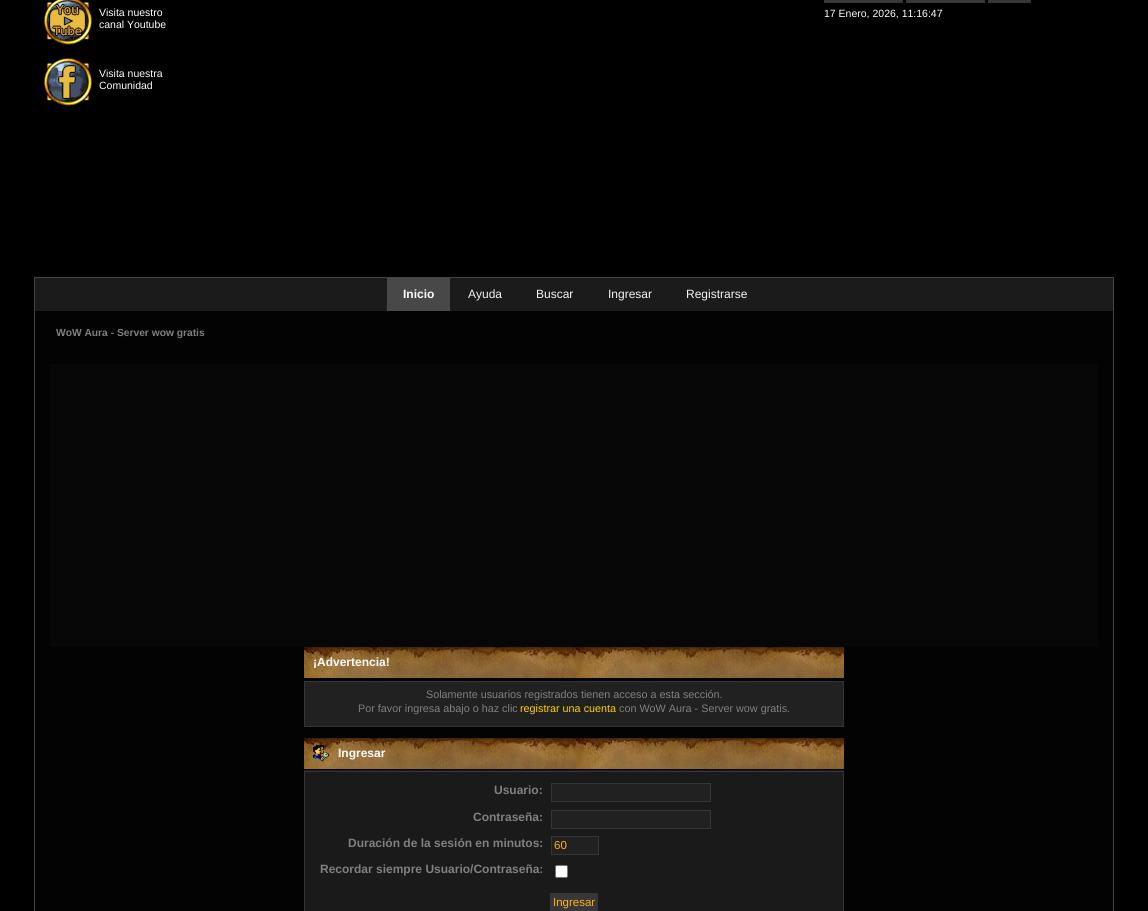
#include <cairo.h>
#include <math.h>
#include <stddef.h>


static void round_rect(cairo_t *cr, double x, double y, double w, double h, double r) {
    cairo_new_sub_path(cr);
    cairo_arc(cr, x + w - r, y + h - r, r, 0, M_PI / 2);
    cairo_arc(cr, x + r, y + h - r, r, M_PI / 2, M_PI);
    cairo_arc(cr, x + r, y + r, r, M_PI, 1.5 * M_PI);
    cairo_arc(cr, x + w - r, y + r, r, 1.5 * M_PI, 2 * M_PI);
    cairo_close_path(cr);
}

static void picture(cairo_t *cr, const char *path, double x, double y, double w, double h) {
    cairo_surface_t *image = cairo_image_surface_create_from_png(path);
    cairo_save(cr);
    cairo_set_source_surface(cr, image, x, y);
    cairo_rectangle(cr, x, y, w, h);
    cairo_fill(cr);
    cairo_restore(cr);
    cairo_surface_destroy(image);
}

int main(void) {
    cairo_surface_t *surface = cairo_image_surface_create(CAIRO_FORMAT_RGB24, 1148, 911);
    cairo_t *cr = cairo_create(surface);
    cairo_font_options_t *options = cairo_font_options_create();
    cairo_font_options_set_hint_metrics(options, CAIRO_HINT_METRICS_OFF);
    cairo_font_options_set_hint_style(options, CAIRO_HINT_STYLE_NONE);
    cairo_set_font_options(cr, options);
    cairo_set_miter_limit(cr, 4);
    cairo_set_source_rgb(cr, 0, 0, 0);
    cairo_paint(cr);
    picture(cr, "img1.png", 44, 0, 48, 45);
    cairo_select_font_face(cr, "Liberation Sans", CAIRO_FONT_SLANT_NORMAL, CAIRO_FONT_WEIGHT_NORMAL);
    cairo_set_font_size(cr, 10.5);
    cairo_set_source_rgb(cr, 1, 1, 1);
    cairo_move_to(cr, 99, 16);
    cairo_show_text(cr, "Visita nuestro");
    cairo_move_to(cr, 99, 28);
    cairo_show_text(cr, "canal Youtube");
    picture(cr, "img2.png", 44, 58, 48, 48);
    cairo_move_to(cr, 99, 77);
    cairo_show_text(cr, "Visita nuestra");
    cairo_move_to(cr, 99, 89);
    cairo_show_text(cr, "Comunidad");
    cairo_set_source_rgb(cr, 0.224, 0.224, 0.231);
    cairo_rectangle(cr, 824.5, -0.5, 78, 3);
    cairo_fill_preserve(cr);
    cairo_set_source_rgb(cr, 0.212, 0.212, 0.212);
    cairo_set_line_width(cr, 1);
    cairo_stroke(cr);
    cairo_set_source_rgb(cr, 0.224, 0.224, 0.231);
    cairo_rectangle(cr, 906.5, -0.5, 78, 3);
    cairo_fill_preserve(cr);
    cairo_set_source_rgb(cr, 0.212, 0.212, 0.212);
    cairo_stroke(cr);
    cairo_set_source_rgb(cr, 0.216, 0.216, 0.216);
    cairo_rectangle(cr, 988.5, -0.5, 42, 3);
    cairo_fill_preserve(cr);
    cairo_set_source_rgb(cr, 0.212, 0.212, 0.212);
    cairo_stroke(cr);
    cairo_set_source_rgb(cr, 1, 1, 1);
    cairo_move_to(cr, 824, 17);
    cairo_show_text(cr, "17 Enero, 2026, 11:16:47");
    cairo_set_source_rgb(cr, 0.106, 0.106, 0.106);
    cairo_rectangle(cr, 35, 278, 1078, 33);
    cairo_fill(cr);
    cairo_set_source_rgb(cr, 0.267, 0.267, 0.267);
    cairo_rectangle(cr, 34, 277, 1080, 1);
    cairo_fill(cr);
    cairo_rectangle(cr, 1113, 277, 1, 634);
    cairo_fill(cr);
    cairo_rectangle(cr, 34, 277, 1, 634);
    cairo_fill(cr);
    cairo_set_source_rgb(cr, 0.282, 0.282, 0.282);
    cairo_rectangle(cr, 387, 278, 63, 33);
    cairo_fill(cr);
    cairo_select_font_face(cr, "Liberation Sans", CAIRO_FONT_SLANT_NORMAL, CAIRO_FONT_WEIGHT_BOLD);
    cairo_set_font_size(cr, 12);
    cairo_set_source_rgb(cr, 1, 1, 1);
    cairo_move_to(cr, 403, 298);
    cairo_show_text(cr, "Inicio");
    cairo_select_font_face(cr, "Liberation Sans", CAIRO_FONT_SLANT_NORMAL, CAIRO_FONT_WEIGHT_NORMAL);
    cairo_set_source_rgb(cr, 0.953, 0.953, 0.953);
    cairo_move_to(cr, 468, 298);
    cairo_show_text(cr, "Ayuda");
    cairo_move_to(cr, 536, 298);
    cairo_show_text(cr, "Buscar");
    cairo_move_to(cr, 608, 298);
    cairo_show_text(cr, "Ingresar");
    cairo_move_to(cr, 686, 298);
    cairo_show_text(cr, "Registrarse");
    cairo_set_source_rgb(cr, 0.012, 0.012, 0.012);
    cairo_rectangle(cr, 35, 311, 1078, 600);
    cairo_fill(cr);
    cairo_select_font_face(cr, "Liberation Sans", CAIRO_FONT_SLANT_NORMAL, CAIRO_FONT_WEIGHT_BOLD);
    cairo_set_font_size(cr, 10.25);
    cairo_set_source_rgb(cr, 0.502, 0.502, 0.502);
    cairo_move_to(cr, 56, 336);
    cairo_show_text(cr, "WoW Aura - Server wow gratis");
    cairo_set_source_rgb(cr, 0.031, 0.031, 0.031);
    cairo_rectangle(cr, 50, 364, 1048, 283);
    cairo_fill(cr);
    picture(cr, "img3.png", 304, 647, 540, 31);
    cairo_set_font_size(cr, 12);
    cairo_set_source_rgb(cr, 1, 1, 1);
    cairo_move_to(cr, 313, 666);
    cairo_show_text(cr, "¡Advertencia!");
    cairo_set_source_rgb(cr, 0.129, 0.129, 0.129);
    cairo_rectangle(cr, 304.5, 681.5, 539, 45);
    cairo_fill_preserve(cr);
    cairo_set_source_rgb(cr, 0.212, 0.212, 0.212);
    cairo_stroke(cr);
    cairo_select_font_face(cr, "Liberation Sans", CAIRO_FONT_SLANT_NORMAL, CAIRO_FONT_WEIGHT_NORMAL);
    cairo_set_font_size(cr, 10.8);
    cairo_set_source_rgb(cr, 0.502, 0.502, 0.502);
    cairo_move_to(cr, 426, 698);
    cairo_show_text(cr, "Solamente usuarios registrados tienen acceso a esta sección.");
    cairo_move_to(cr, 358, 712);
    cairo_show_text(cr, "Por favor ingresa abajo o haz clic");
    cairo_set_source_rgb(cr, 1, 0.82, 0);
    cairo_move_to(cr, 520, 712);
    cairo_show_text(cr, "registrar una cuenta");
    cairo_set_source_rgb(cr, 0.502, 0.502, 0.502);
    cairo_move_to(cr, 619, 712);
    cairo_show_text(cr, "con WoW Aura - Server wow gratis.");
    picture(cr, "img3.png", 304, 738, 540, 31);
    picture(cr, "img4.png", 313, 745, 16, 16);
    cairo_select_font_face(cr, "Liberation Sans", CAIRO_FONT_SLANT_NORMAL, CAIRO_FONT_WEIGHT_BOLD);
    cairo_set_font_size(cr, 12);
    cairo_set_source_rgb(cr, 1, 1, 1);
    cairo_move_to(cr, 338, 757);
    cairo_show_text(cr, "Ingresar");
    picture(cr, "img5.png", 304, 770, 540, 12);
    cairo_set_source_rgb(cr, 0.212, 0.212, 0.212);
    cairo_rectangle(cr, 843, 772, 1, 139);
    cairo_fill(cr);
    cairo_set_source_rgb(cr, 0.102, 0.102, 0.102);
    cairo_rectangle(cr, 305, 782, 538, 129);
    cairo_fill(cr);
    cairo_set_source_rgb(cr, 0.212, 0.212, 0.212);
    cairo_rectangle(cr, 304, 782, 1, 129);
    cairo_fill(cr);
    cairo_set_source_rgb(cr, 0.502, 0.502, 0.502);
    cairo_move_to(cr, 494, 794);
    cairo_show_text(cr, "Usuario:");
    cairo_set_source_rgb(cr, 0.129, 0.129, 0.129);
    cairo_rectangle(cr, 551.5, 783.5, 159, 18);
    cairo_fill_preserve(cr);
    cairo_set_source_rgb(cr, 0.212, 0.212, 0.212);
    cairo_stroke(cr);
    cairo_set_source_rgb(cr, 0.502, 0.502, 0.502);
    cairo_move_to(cr, 473, 821);
    cairo_show_text(cr, "Contraseña:");
    cairo_set_source_rgb(cr, 0.129, 0.129, 0.129);
    cairo_rectangle(cr, 551.5, 810.5, 159, 18);
    cairo_fill_preserve(cr);
    cairo_set_source_rgb(cr, 0.212, 0.212, 0.212);
    cairo_stroke(cr);
    cairo_set_source_rgb(cr, 0.502, 0.502, 0.502);
    cairo_move_to(cr, 348, 847);
    cairo_show_text(cr, "Duración de la sesión en minutos:");
    cairo_set_source_rgb(cr, 0.129, 0.129, 0.129);
    cairo_rectangle(cr, 551.5, 836.5, 47, 18);
    cairo_fill_preserve(cr);
    cairo_set_source_rgb(cr, 0.212, 0.212, 0.212);
    cairo_stroke(cr);
    cairo_select_font_face(cr, "Liberation Sans", CAIRO_FONT_SLANT_NORMAL, CAIRO_FONT_WEIGHT_NORMAL);
    cairo_set_font_size(cr, 11.5);
    cairo_set_source_rgb(cr, 1, 0.69, 0.098);
    cairo_move_to(cr, 554, 849);
    cairo_show_text(cr, "60");
    cairo_select_font_face(cr, "Liberation Sans", CAIRO_FONT_SLANT_NORMAL, CAIRO_FONT_WEIGHT_BOLD);
    cairo_set_font_size(cr, 12);
    cairo_set_source_rgb(cr, 0.502, 0.502, 0.502);
    cairo_move_to(cr, 320, 873);
    cairo_show_text(cr, "Recordar siempre Usuario/Contraseña:");
    cairo_set_source_rgb(cr, 1, 1, 1);
    round_rect(cr, 555.5, 865.5, 12, 12, 1.5);
    cairo_fill_preserve(cr);
    cairo_set_source_rgb(cr, 0.463, 0.463, 0.463);
    cairo_stroke(cr);
    cairo_set_source_rgb(cr, 0.216, 0.216, 0.216);
    cairo_rectangle(cr, 550.5, 893.5, 47, 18);
    cairo_fill_preserve(cr);
    cairo_set_source_rgb(cr, 0.212, 0.212, 0.212);
    cairo_stroke(cr);
    cairo_select_font_face(cr, "Liberation Sans", CAIRO_FONT_SLANT_NORMAL, CAIRO_FONT_WEIGHT_NORMAL);
    cairo_set_font_size(cr, 11.5);
    cairo_set_source_rgb(cr, 1, 0.69, 0.098);
    cairo_move_to(cr, 553, 906);
    cairo_show_text(cr, "Ingresar");
    cairo_surface_write_to_png(surface, "page.png");
    cairo_font_options_destroy(options);
    cairo_destroy(cr);
    cairo_surface_destroy(surface);
    return 0;
}
